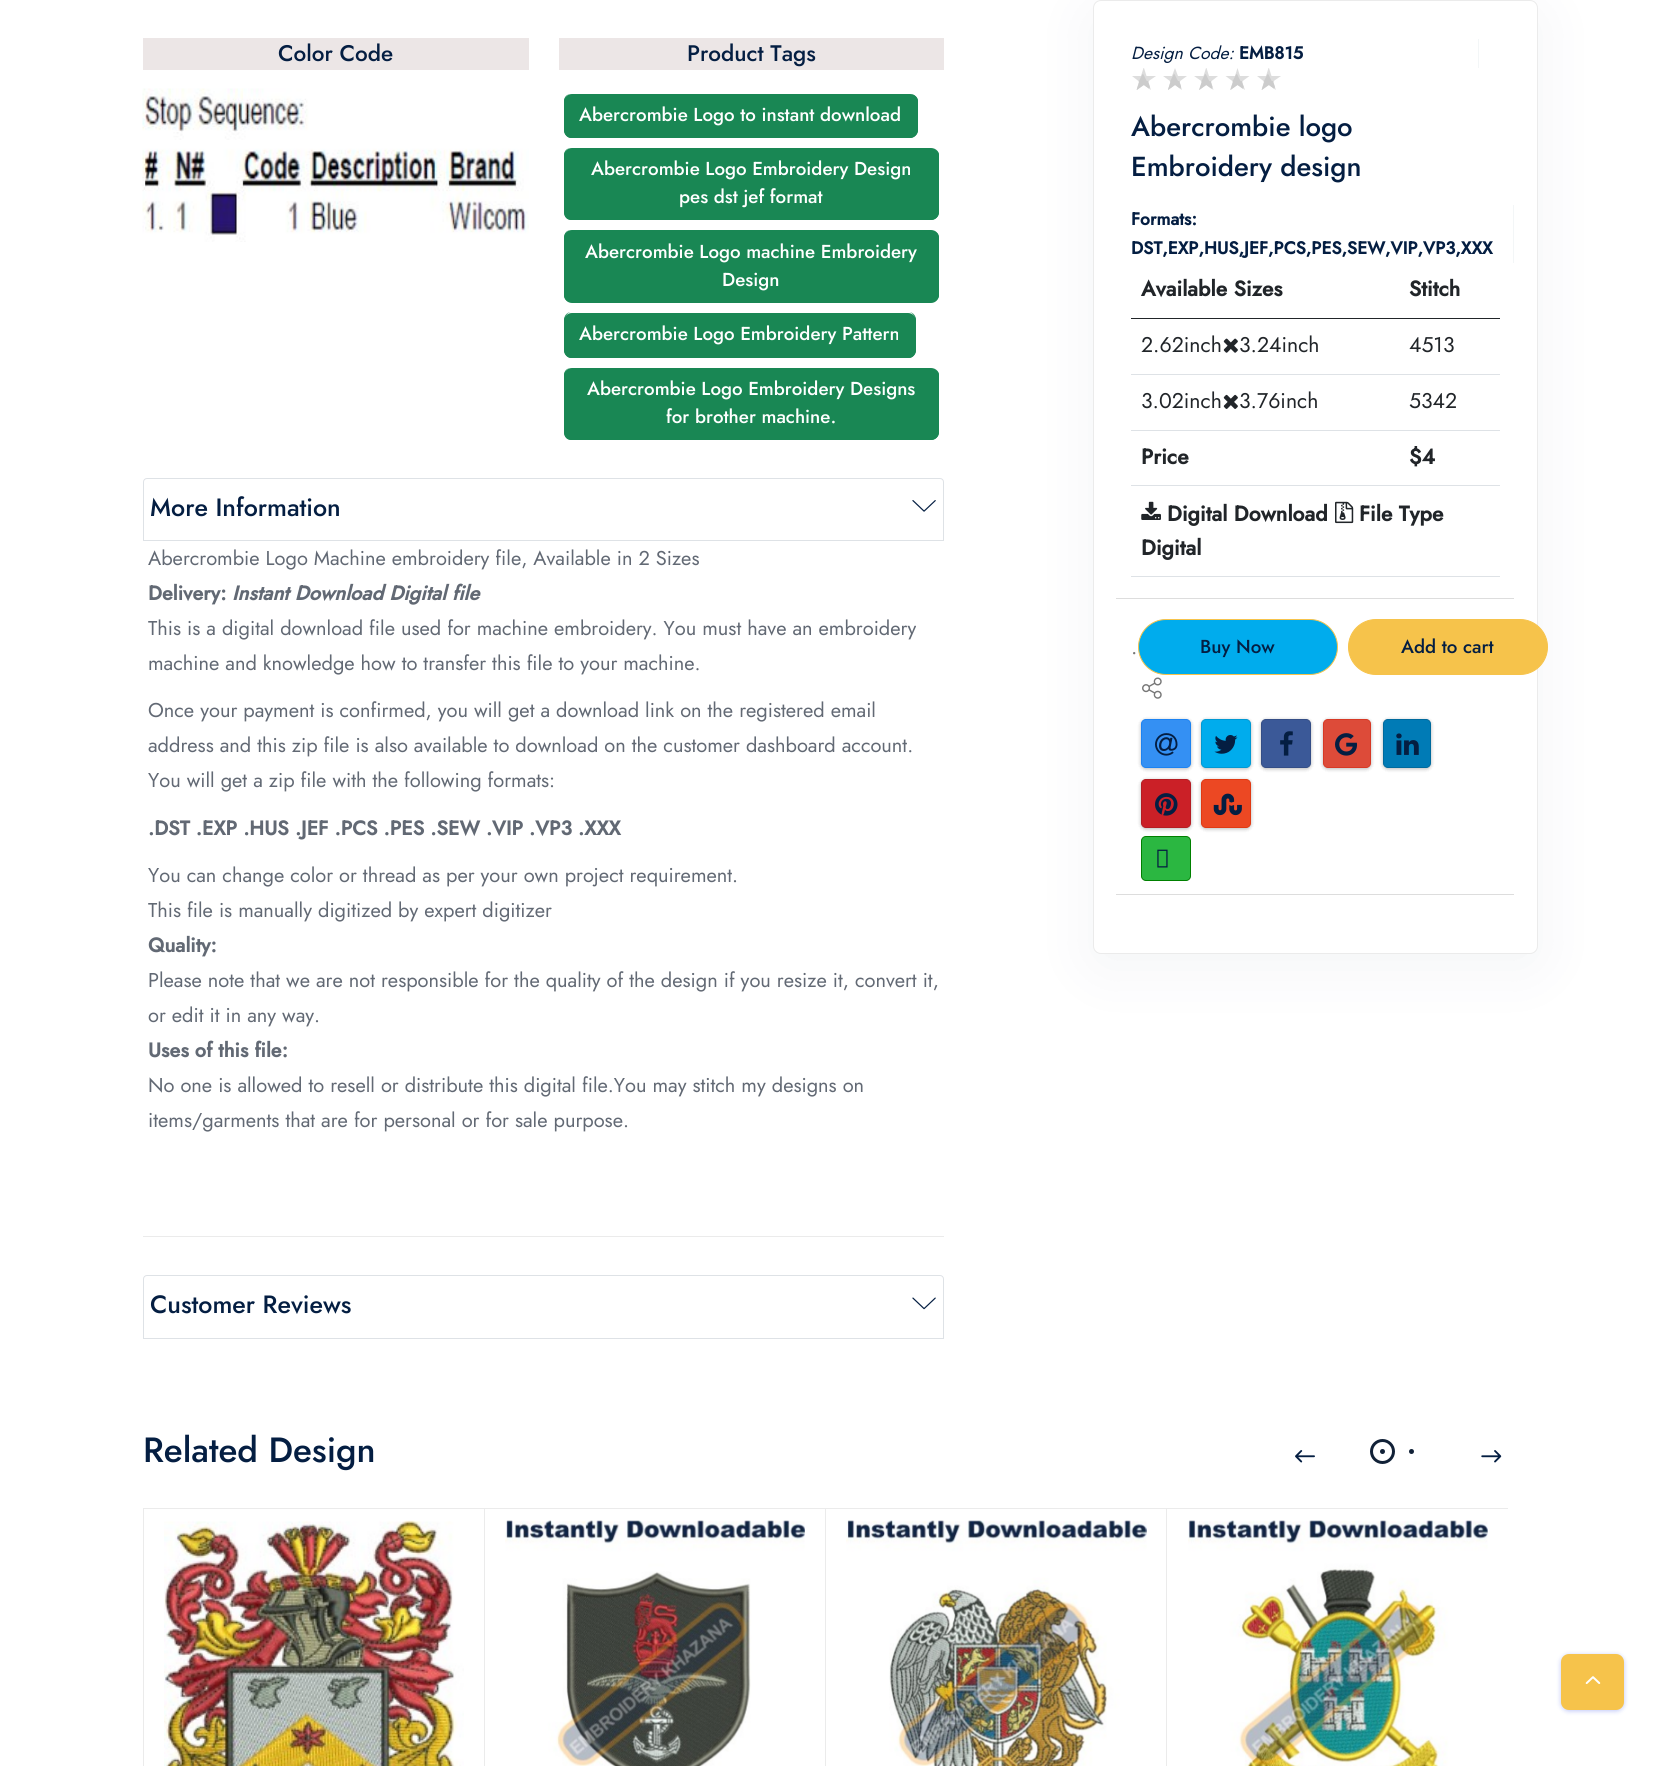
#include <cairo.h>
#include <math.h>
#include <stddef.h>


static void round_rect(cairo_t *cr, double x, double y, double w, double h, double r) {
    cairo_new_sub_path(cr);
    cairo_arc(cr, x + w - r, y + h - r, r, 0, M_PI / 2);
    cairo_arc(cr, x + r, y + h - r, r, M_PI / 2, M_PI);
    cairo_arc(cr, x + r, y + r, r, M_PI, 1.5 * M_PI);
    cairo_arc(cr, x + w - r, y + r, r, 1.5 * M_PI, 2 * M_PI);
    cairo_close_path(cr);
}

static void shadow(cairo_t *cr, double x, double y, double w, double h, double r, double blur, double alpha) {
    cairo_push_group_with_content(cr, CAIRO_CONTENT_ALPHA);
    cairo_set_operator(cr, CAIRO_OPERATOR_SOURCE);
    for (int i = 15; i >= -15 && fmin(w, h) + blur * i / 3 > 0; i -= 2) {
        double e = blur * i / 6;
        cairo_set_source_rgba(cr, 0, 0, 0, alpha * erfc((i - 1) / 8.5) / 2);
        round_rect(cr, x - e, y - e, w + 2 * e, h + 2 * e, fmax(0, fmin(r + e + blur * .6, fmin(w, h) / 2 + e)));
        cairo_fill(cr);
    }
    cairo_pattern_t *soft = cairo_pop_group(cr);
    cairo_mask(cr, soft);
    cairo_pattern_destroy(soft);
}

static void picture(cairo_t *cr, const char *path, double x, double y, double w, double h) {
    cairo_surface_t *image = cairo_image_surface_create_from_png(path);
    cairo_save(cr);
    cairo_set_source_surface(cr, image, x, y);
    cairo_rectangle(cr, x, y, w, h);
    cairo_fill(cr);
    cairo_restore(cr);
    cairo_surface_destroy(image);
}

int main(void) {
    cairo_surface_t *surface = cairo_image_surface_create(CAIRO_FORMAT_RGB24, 1679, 1766);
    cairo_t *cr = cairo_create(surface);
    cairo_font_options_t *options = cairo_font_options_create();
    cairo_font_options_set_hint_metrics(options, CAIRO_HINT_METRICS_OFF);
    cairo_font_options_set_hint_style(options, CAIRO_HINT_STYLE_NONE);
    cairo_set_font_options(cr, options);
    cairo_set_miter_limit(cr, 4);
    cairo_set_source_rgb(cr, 1, 1, 1);
    cairo_paint(cr);
    cairo_set_source_rgb(cr, 0.922, 0.902, 0.902);
    cairo_rectangle(cr, 143, 38, 386, 32);
    cairo_fill(cr);
    cairo_select_font_face(cr, "Jost Medium", CAIRO_FONT_SLANT_NORMAL, CAIRO_FONT_WEIGHT_NORMAL);
    cairo_set_font_size(cr, 22.5);
    cairo_set_source_rgb(cr, 0.016, 0.118, 0.259);
    cairo_move_to(cr, 278, 61);
    cairo_show_text(cr, "Color Code");
    picture(cr, "img1.png", 142, 88, 387, 154);
    cairo_set_source_rgb(cr, 0.922, 0.902, 0.902);
    cairo_rectangle(cr, 559, 38, 385, 32);
    cairo_fill(cr);
    cairo_set_source_rgb(cr, 0.016, 0.118, 0.259);
    cairo_move_to(cr, 687, 61);
    cairo_show_text(cr, "Product Tags");
    cairo_set_source_rgb(cr, 0.098, 0.529, 0.329);
    round_rect(cr, 564, 94, 354, 44, 8);
    cairo_fill(cr);
    cairo_set_fill_rule(cr, CAIRO_FILL_RULE_EVEN_ODD);
    cairo_new_path(cr);
    cairo_move_to(cr, 571, 94);
    cairo_line_to(cr, 910, 94);
    cairo_curve_to(cr, 914, 94, 918, 97, 918, 101);
    cairo_line_to(cr, 918, 130);
    cairo_curve_to(cr, 918, 134, 914, 138, 910, 138);
    cairo_line_to(cr, 571, 138);
    cairo_curve_to(cr, 567, 138, 564, 134, 564, 130);
    cairo_line_to(cr, 564, 101);
    cairo_curve_to(cr, 564, 97, 567, 94, 571, 94);
    cairo_close_path(cr);
    cairo_move_to(cr, 571, 94);
    cairo_line_to(cr, 910, 94);
    cairo_curve_to(cr, 913, 94, 916, 97, 916, 101);
    cairo_line_to(cr, 916, 130);
    cairo_curve_to(cr, 916, 133, 913, 136, 910, 136);
    cairo_line_to(cr, 571, 136);
    cairo_curve_to(cr, 568, 136, 565, 133, 565, 130);
    cairo_line_to(cr, 565, 101);
    cairo_curve_to(cr, 565, 97, 568, 94, 571, 94);
    cairo_close_path(cr);
    cairo_fill(cr);
    cairo_set_font_size(cr, 18.75);
    cairo_set_source_rgb(cr, 1, 1, 1);
    cairo_move_to(cr, 579, 121);
    cairo_show_text(cr, "Abercrombie Logo to instant download");
    cairo_set_source_rgb(cr, 0.098, 0.529, 0.329);
    round_rect(cr, 564, 148, 375, 72, 8);
    cairo_fill(cr);
    cairo_new_path(cr);
    cairo_move_to(cr, 571, 148);
    cairo_line_to(cr, 931, 148);
    cairo_curve_to(cr, 935, 148, 939, 151, 939, 155);
    cairo_line_to(cr, 939, 212);
    cairo_curve_to(cr, 939, 217, 935, 220, 931, 220);
    cairo_line_to(cr, 571, 220);
    cairo_curve_to(cr, 567, 220, 564, 217, 564, 212);
    cairo_line_to(cr, 564, 155);
    cairo_curve_to(cr, 564, 151, 567, 148, 571, 148);
    cairo_close_path(cr);
    cairo_move_to(cr, 571, 148);
    cairo_line_to(cr, 931, 148);
    cairo_curve_to(cr, 935, 148, 938, 151, 938, 155);
    cairo_line_to(cr, 938, 212);
    cairo_curve_to(cr, 938, 216, 935, 219, 931, 219);
    cairo_line_to(cr, 571, 219);
    cairo_curve_to(cr, 568, 219, 565, 216, 565, 212);
    cairo_line_to(cr, 565, 155);
    cairo_curve_to(cr, 565, 151, 568, 148, 571, 148);
    cairo_close_path(cr);
    cairo_fill(cr);
    cairo_set_source_rgb(cr, 1, 1, 1);
    cairo_move_to(cr, 591, 175);
    cairo_show_text(cr, "Abercrombie Logo Embroidery Design");
    cairo_move_to(cr, 679, 203);
    cairo_show_text(cr, "pes dst jef format");
    cairo_set_source_rgb(cr, 0.098, 0.529, 0.329);
    round_rect(cr, 564, 230, 375, 73, 8);
    cairo_fill(cr);
    cairo_new_path(cr);
    cairo_move_to(cr, 571, 230);
    cairo_line_to(cr, 931, 230);
    cairo_curve_to(cr, 935, 230, 939, 233, 939, 238);
    cairo_line_to(cr, 939, 295);
    cairo_curve_to(cr, 939, 299, 935, 302, 931, 302);
    cairo_line_to(cr, 571, 302);
    cairo_curve_to(cr, 567, 302, 564, 299, 564, 295);
    cairo_line_to(cr, 564, 238);
    cairo_curve_to(cr, 564, 233, 567, 230, 571, 230);
    cairo_close_path(cr);
    cairo_move_to(cr, 571, 230);
    cairo_line_to(cr, 931, 230);
    cairo_curve_to(cr, 935, 230, 938, 233, 938, 238);
    cairo_line_to(cr, 938, 295);
    cairo_curve_to(cr, 938, 298, 935, 301, 931, 301);
    cairo_line_to(cr, 571, 301);
    cairo_curve_to(cr, 568, 301, 565, 298, 565, 295);
    cairo_line_to(cr, 565, 238);
    cairo_curve_to(cr, 565, 233, 568, 230, 571, 230);
    cairo_close_path(cr);
    cairo_fill(cr);
    cairo_set_source_rgb(cr, 1, 1, 1);
    cairo_move_to(cr, 585, 258);
    cairo_show_text(cr, "Abercrombie Logo machine Embroidery");
    cairo_move_to(cr, 722, 286);
    cairo_show_text(cr, "Design");
    cairo_set_source_rgb(cr, 0.098, 0.529, 0.329);
    round_rect(cr, 564, 313, 352, 45, 8);
    cairo_fill(cr);
    cairo_new_path(cr);
    cairo_move_to(cr, 571, 312);
    cairo_line_to(cr, 909, 312);
    cairo_curve_to(cr, 913, 312, 916, 316, 916, 320);
    cairo_line_to(cr, 916, 350);
    cairo_curve_to(cr, 916, 354, 913, 358, 909, 358);
    cairo_line_to(cr, 571, 358);
    cairo_curve_to(cr, 567, 358, 564, 354, 564, 350);
    cairo_line_to(cr, 564, 320);
    cairo_curve_to(cr, 564, 316, 567, 312, 571, 312);
    cairo_close_path(cr);
    cairo_move_to(cr, 571, 312);
    cairo_line_to(cr, 909, 312);
    cairo_curve_to(cr, 912, 312, 915, 316, 915, 320);
    cairo_line_to(cr, 915, 350);
    cairo_curve_to(cr, 915, 353, 912, 356, 909, 356);
    cairo_line_to(cr, 571, 356);
    cairo_curve_to(cr, 568, 356, 565, 353, 565, 350);
    cairo_line_to(cr, 565, 320);
    cairo_curve_to(cr, 565, 316, 568, 312, 571, 312);
    cairo_close_path(cr);
    cairo_fill(cr);
    cairo_set_source_rgb(cr, 1, 1, 1);
    cairo_move_to(cr, 579, 340);
    cairo_show_text(cr, "Abercrombie Logo Embroidery Pattern");
    cairo_set_source_rgb(cr, 0.098, 0.529, 0.329);
    round_rect(cr, 564, 368, 375, 72, 8);
    cairo_fill(cr);
    cairo_new_path(cr);
    cairo_move_to(cr, 571, 368);
    cairo_line_to(cr, 931, 368);
    cairo_curve_to(cr, 935, 368, 939, 371, 939, 375);
    cairo_line_to(cr, 939, 432);
    cairo_curve_to(cr, 939, 437, 935, 440, 931, 440);
    cairo_line_to(cr, 571, 440);
    cairo_curve_to(cr, 567, 440, 564, 437, 564, 432);
    cairo_line_to(cr, 564, 375);
    cairo_curve_to(cr, 564, 371, 567, 368, 571, 368);
    cairo_close_path(cr);
    cairo_move_to(cr, 571, 368);
    cairo_line_to(cr, 931, 368);
    cairo_curve_to(cr, 935, 368, 938, 371, 938, 375);
    cairo_line_to(cr, 938, 432);
    cairo_curve_to(cr, 938, 436, 935, 439, 931, 439);
    cairo_line_to(cr, 571, 439);
    cairo_curve_to(cr, 568, 439, 565, 436, 565, 432);
    cairo_line_to(cr, 565, 375);
    cairo_curve_to(cr, 565, 371, 568, 368, 571, 368);
    cairo_close_path(cr);
    cairo_fill(cr);
    cairo_set_source_rgb(cr, 1, 1, 1);
    cairo_move_to(cr, 587, 395);
    cairo_show_text(cr, "Abercrombie Logo Embroidery Designs");
    cairo_move_to(cr, 666, 423);
    cairo_show_text(cr, "for brother machine.");
    cairo_set_source_rgb(cr, 0.918, 0.918, 0.918);
    cairo_rectangle(cr, 143, 1236, 801, 1);
    cairo_fill(cr);
    cairo_new_path(cr);
    cairo_move_to(cr, 147, 478.5);
    cairo_line_to(cr, 940, 478.5);
    cairo_curve_to(cr, 942, 478.5, 943.5, 480, 943.5, 482);
    cairo_line_to(cr, 943.5, 540.5);
    cairo_line_to(cr, 143.5, 540.5);
    cairo_line_to(cr, 143.5, 482);
    cairo_curve_to(cr, 143.5, 480, 145, 478.5, 147, 478.5);
    cairo_close_path(cr);
    cairo_set_source_rgb(cr, 0.871, 0.886, 0.902);
    cairo_set_line_width(cr, 1);
    cairo_stroke(cr);
    cairo_set_font_size(cr, 25);
    cairo_set_source_rgb(cr, 0.016, 0.118, 0.259);
    cairo_move_to(cr, 150, 516);
    cairo_show_text(cr, "More Information");
    picture(cr, "img2.png", 912, 500, 24, 12);
    cairo_select_font_face(cr, "Jost", CAIRO_FONT_SLANT_NORMAL, CAIRO_FONT_WEIGHT_NORMAL);
    cairo_set_font_size(cr, 20);
    cairo_set_source_rgb(cr, 0.384, 0.412, 0.455);
    cairo_move_to(cr, 148, 565);
    cairo_show_text(cr, "Abercrombie Logo Machine embroidery file, Available in 2 Sizes");
    cairo_select_font_face(cr, "Jost", CAIRO_FONT_SLANT_NORMAL, CAIRO_FONT_WEIGHT_BOLD);
    cairo_move_to(cr, 148, 600);
    cairo_show_text(cr, "Delivery:");
    cairo_select_font_face(cr, "Jost", CAIRO_FONT_SLANT_ITALIC, CAIRO_FONT_WEIGHT_BOLD);
    cairo_move_to(cr, 232, 600);
    cairo_show_text(cr, "Instant Download Digital file");
    cairo_select_font_face(cr, "Jost", CAIRO_FONT_SLANT_NORMAL, CAIRO_FONT_WEIGHT_NORMAL);
    cairo_move_to(cr, 148, 635);
    cairo_show_text(cr, "This is a digital download file used for machine embroidery. You must have an embroidery");
    cairo_move_to(cr, 148, 670);
    cairo_show_text(cr, "machine and knowledge how to transfer this file to your machine.");
    cairo_move_to(cr, 148, 717);
    cairo_show_text(cr, "Once your payment is confirmed, you will get a download link on the registered email");
    cairo_move_to(cr, 148, 752);
    cairo_show_text(cr, "address and this zip file is also available to download on the customer dashboard account.");
    cairo_move_to(cr, 148, 787);
    cairo_show_text(cr, "You will get a zip file with the following formats:");
    cairo_select_font_face(cr, "Jost", CAIRO_FONT_SLANT_NORMAL, CAIRO_FONT_WEIGHT_BOLD);
    cairo_move_to(cr, 148, 835);
    cairo_show_text(cr, ".DST .EXP .HUS .JEF .PCS .PES .SEW .VIP .VP3 .XXX");
    cairo_select_font_face(cr, "Jost", CAIRO_FONT_SLANT_NORMAL, CAIRO_FONT_WEIGHT_NORMAL);
    cairo_move_to(cr, 148, 882);
    cairo_show_text(cr, "You can change color or thread as per your own project requirement.");
    cairo_move_to(cr, 148, 917);
    cairo_show_text(cr, "This file is manually digitized by expert digitizer");
    cairo_select_font_face(cr, "Jost", CAIRO_FONT_SLANT_NORMAL, CAIRO_FONT_WEIGHT_BOLD);
    cairo_move_to(cr, 148, 952);
    cairo_show_text(cr, "Quality:");
    cairo_select_font_face(cr, "Jost", CAIRO_FONT_SLANT_NORMAL, CAIRO_FONT_WEIGHT_NORMAL);
    cairo_move_to(cr, 148, 987);
    cairo_show_text(cr, "Please note that we are not responsible for the quality of the design if you resize it, convert it,");
    cairo_move_to(cr, 148, 1022);
    cairo_show_text(cr, "or edit it in any way.");
    cairo_select_font_face(cr, "Jost", CAIRO_FONT_SLANT_NORMAL, CAIRO_FONT_WEIGHT_BOLD);
    cairo_move_to(cr, 148, 1057);
    cairo_show_text(cr, "Uses of this file:");
    cairo_select_font_face(cr, "Jost", CAIRO_FONT_SLANT_NORMAL, CAIRO_FONT_WEIGHT_NORMAL);
    cairo_move_to(cr, 148, 1092);
    cairo_show_text(cr, "No one is allowed to resell or distribute this digital file.You may stitch my designs on");
    cairo_move_to(cr, 148, 1127);
    cairo_show_text(cr, "items/garments that are for personal or for sale purpose.");
    cairo_new_path(cr);
    cairo_move_to(cr, 147, 1275.5);
    cairo_line_to(cr, 940, 1275.5);
    cairo_curve_to(cr, 942, 1275.5, 943.5, 1277, 943.5, 1279);
    cairo_line_to(cr, 943.5, 1338.5);
    cairo_line_to(cr, 143.5, 1338.5);
    cairo_line_to(cr, 143.5, 1279);
    cairo_curve_to(cr, 143.5, 1277, 145, 1275.5, 147, 1275.5);
    cairo_close_path(cr);
    cairo_set_source_rgb(cr, 0.871, 0.886, 0.902);
    cairo_stroke(cr);
    cairo_select_font_face(cr, "Jost Medium", CAIRO_FONT_SLANT_NORMAL, CAIRO_FONT_WEIGHT_NORMAL);
    cairo_set_font_size(cr, 25);
    cairo_set_source_rgb(cr, 0.016, 0.118, 0.259);
    cairo_move_to(cr, 150, 1313);
    cairo_show_text(cr, "Customer Reviews");
    picture(cr, "img3.png", 912, 1297, 24, 13);
    cairo_set_source_rgb(cr, 0.016, 0.118, 0.259);
    shadow(cr, 1093, 13, 445, 953, 8, 31, 0.05);
    cairo_set_source_rgb(cr, 1, 1, 1);
    round_rect(cr, 1093.5, 0.5, 444, 953, 7.5);
    cairo_fill_preserve(cr);
    cairo_set_source_rgb(cr, 0.918, 0.918, 0.918);
    cairo_stroke(cr);
    cairo_set_source_rgb(cr, 0.953, 0.961, 0.965);
    cairo_rectangle(cr, 1478, 39, 1, 29);
    cairo_fill(cr);
    cairo_select_font_face(cr, "Jost", CAIRO_FONT_SLANT_ITALIC, CAIRO_FONT_WEIGHT_NORMAL);
    cairo_set_font_size(cr, 17.5);
    cairo_set_source_rgb(cr, 0.016, 0.118, 0.259);
    cairo_move_to(cr, 1131, 59);
    cairo_show_text(cr, "Design Code:");
    cairo_select_font_face(cr, "Jost", CAIRO_FONT_SLANT_NORMAL, CAIRO_FONT_WEIGHT_BOLD);
    cairo_move_to(cr, 1239, 59);
    cairo_show_text(cr, "EMB815");
    cairo_set_source_rgb(cr, 0.867, 0.867, 0.867);
    cairo_set_fill_rule(cr, CAIRO_FILL_RULE_WINDING);
    cairo_new_path(cr);
    cairo_move_to(cr, 1144, 68);
    cairo_line_to(cr, 1146.5, 76);
    cairo_line_to(cr, 1156, 76);
    cairo_line_to(cr, 1148, 81.5);
    cairo_line_to(cr, 1151, 90);
    cairo_line_to(cr, 1144, 85);
    cairo_line_to(cr, 1136.5, 90);
    cairo_line_to(cr, 1139, 81.5);
    cairo_line_to(cr, 1132, 76);
    cairo_line_to(cr, 1141, 76);
    cairo_line_to(cr, 1143.5, 68);
    cairo_close_path(cr);
    cairo_fill(cr);
    picture(cr, "img4.png", 1136, 74, 14, 16);
    cairo_new_path(cr);
    cairo_move_to(cr, 1175, 68);
    cairo_line_to(cr, 1178, 76);
    cairo_line_to(cr, 1187, 76);
    cairo_line_to(cr, 1179.5, 81.5);
    cairo_line_to(cr, 1182, 90);
    cairo_line_to(cr, 1175, 85);
    cairo_line_to(cr, 1168, 90);
    cairo_line_to(cr, 1170.5, 81.5);
    cairo_line_to(cr, 1163, 76);
    cairo_line_to(cr, 1172, 76);
    cairo_close_path(cr);
    cairo_fill(cr);
    picture(cr, "img5.png", 1168, 74, 13, 16);
    cairo_new_path(cr);
    cairo_move_to(cr, 1206.5, 68);
    cairo_line_to(cr, 1209, 76);
    cairo_line_to(cr, 1218, 76);
    cairo_line_to(cr, 1211, 81.5);
    cairo_line_to(cr, 1213.5, 90);
    cairo_line_to(cr, 1206, 85);
    cairo_line_to(cr, 1199, 90);
    cairo_line_to(cr, 1202, 81.5);
    cairo_line_to(cr, 1194, 76);
    cairo_line_to(cr, 1203.5, 76);
    cairo_line_to(cr, 1206, 68);
    cairo_close_path(cr);
    cairo_fill(cr);
    picture(cr, "img6.png", 1199, 74, 14, 16);
    cairo_new_path(cr);
    cairo_move_to(cr, 1237.5, 68);
    cairo_line_to(cr, 1240, 76);
    cairo_line_to(cr, 1249.5, 76);
    cairo_line_to(cr, 1242, 81.5);
    cairo_line_to(cr, 1245, 90);
    cairo_line_to(cr, 1237.5, 85);
    cairo_line_to(cr, 1230, 90);
    cairo_line_to(cr, 1233, 81.5);
    cairo_line_to(cr, 1225.5, 76);
    cairo_line_to(cr, 1235, 76);
    cairo_close_path(cr);
    cairo_fill(cr);
    picture(cr, "img7.png", 1230, 74, 14, 16);
    cairo_new_path(cr);
    cairo_move_to(cr, 1269, 68);
    cairo_line_to(cr, 1271.5, 76);
    cairo_line_to(cr, 1281, 76);
    cairo_line_to(cr, 1273, 81.5);
    cairo_line_to(cr, 1276, 90);
    cairo_line_to(cr, 1269, 85);
    cairo_line_to(cr, 1261.5, 90);
    cairo_line_to(cr, 1264, 81.5);
    cairo_line_to(cr, 1257, 76);
    cairo_line_to(cr, 1266, 76);
    cairo_line_to(cr, 1268.5, 68);
    cairo_close_path(cr);
    cairo_fill(cr);
    picture(cr, "img4.png", 1261, 74, 14, 16);
    cairo_select_font_face(cr, "Jost Medium", CAIRO_FONT_SLANT_NORMAL, CAIRO_FONT_WEIGHT_NORMAL);
    cairo_set_font_size(cr, 27.5);
    cairo_set_source_rgb(cr, 0.016, 0.118, 0.259);
    cairo_move_to(cr, 1131, 136);
    cairo_show_text(cr, "Abercrombie logo");
    cairo_move_to(cr, 1131, 176);
    cairo_show_text(cr, "Embroidery design");
    cairo_set_source_rgb(cr, 0.953, 0.961, 0.965);
    cairo_rectangle(cr, 1513, 205, 1, 58);
    cairo_fill(cr);
    cairo_select_font_face(cr, "Jost", CAIRO_FONT_SLANT_NORMAL, CAIRO_FONT_WEIGHT_BOLD);
    cairo_set_font_size(cr, 17.5);
    cairo_set_source_rgb(cr, 0.016, 0.118, 0.259);
    cairo_move_to(cr, 1131, 225);
    cairo_show_text(cr, "Formats:");
    cairo_move_to(cr, 1131, 254);
    cairo_show_text(cr, "DST,EXP,HUS,JEF,PCS,PES,SEW,VIP,VP3,XXX");
    cairo_set_font_size(cr, 21.25);
    cairo_set_source_rgb(cr, 0.129, 0.145, 0.161);
    cairo_move_to(cr, 1141, 296);
    cairo_show_text(cr, "Available Sizes");
    cairo_rectangle(cr, 1131, 318, 369, 1);
    cairo_fill(cr);
    cairo_move_to(cr, 1409, 296);
    cairo_show_text(cr, "Stitch");
    cairo_select_font_face(cr, "Jost", CAIRO_FONT_SLANT_NORMAL, CAIRO_FONT_WEIGHT_NORMAL);
    cairo_move_to(cr, 1141, 352);
    cairo_show_text(cr, "2.62inch");
    picture(cr, "img8.png", 1223, 338, 15, 15);
    cairo_move_to(cr, 1239, 352);
    cairo_show_text(cr, "3.24inch");
    cairo_set_source_rgb(cr, 0.871, 0.886, 0.902);
    cairo_rectangle(cr, 1131, 374, 369, 1);
    cairo_fill(cr);
    cairo_set_source_rgb(cr, 0.129, 0.145, 0.161);
    cairo_move_to(cr, 1409, 352);
    cairo_show_text(cr, "4513");
    cairo_move_to(cr, 1141, 408);
    cairo_show_text(cr, "3.02inch");
    picture(cr, "img9.png", 1223, 394, 15, 15);
    cairo_move_to(cr, 1239, 408);
    cairo_show_text(cr, "3.76inch");
    cairo_set_source_rgb(cr, 0.871, 0.886, 0.902);
    cairo_rectangle(cr, 1131, 430, 369, 1);
    cairo_fill(cr);
    cairo_set_source_rgb(cr, 0.129, 0.145, 0.161);
    cairo_move_to(cr, 1409, 408);
    cairo_show_text(cr, "5342");
    cairo_select_font_face(cr, "Jost", CAIRO_FONT_SLANT_NORMAL, CAIRO_FONT_WEIGHT_BOLD);
    cairo_move_to(cr, 1141, 464);
    cairo_show_text(cr, "Price");
    cairo_set_source_rgb(cr, 0.871, 0.886, 0.902);
    cairo_rectangle(cr, 1131, 485, 369, 1);
    cairo_fill(cr);
    cairo_set_source_rgb(cr, 0.129, 0.145, 0.161);
    cairo_move_to(cr, 1409, 464);
    cairo_show_text(cr, "$4");
    cairo_set_source_rgb(cr, 0.871, 0.886, 0.902);
    cairo_rectangle(cr, 1131, 576, 369, 1);
    cairo_fill(cr);
    picture(cr, "img10.png", 1335, 501, 19, 23);
    cairo_set_source_rgb(cr, 0.129, 0.145, 0.161);
    cairo_move_to(cr, 1359, 521);
    cairo_show_text(cr, "File Type");
    cairo_move_to(cr, 1141, 555);
    cairo_show_text(cr, "Digital");
    picture(cr, "img11.png", 1141, 501, 20, 19);
    cairo_move_to(cr, 1167, 521);
    cairo_show_text(cr, "Digital Download");
    cairo_set_source_rgb(cr, 0.867, 0.867, 0.867);
    cairo_rectangle(cr, 1116, 598, 398, 1);
    cairo_fill(cr);
    cairo_select_font_face(cr, "Jost", CAIRO_FONT_SLANT_NORMAL, CAIRO_FONT_WEIGHT_NORMAL);
    cairo_set_source_rgb(cr, 0.467, 0.467, 0.467);
    cairo_move_to(cr, 1131, 654);
    cairo_show_text(cr, ".");
    cairo_set_source_rgb(cr, 0, 0.675, 0.929);
    round_rect(cr, 1138.5, 619.5, 199, 55, 27.5);
    cairo_fill_preserve(cr);
    cairo_set_source_rgb(cr, 0.961, 0.765, 0.294);
    cairo_stroke(cr);
    cairo_select_font_face(cr, "Jost Medium", CAIRO_FONT_SLANT_NORMAL, CAIRO_FONT_WEIGHT_NORMAL);
    cairo_set_font_size(cr, 18.75);
    cairo_set_source_rgb(cr, 0.016, 0.118, 0.259);
    cairo_move_to(cr, 1200, 653);
    cairo_show_text(cr, "Buy Now");
    cairo_set_source_rgb(cr, 0.961, 0.765, 0.294);
    round_rect(cr, 1348.5, 619.5, 199, 55, 27.5);
    cairo_fill_preserve(cr);
    cairo_stroke(cr);
    cairo_set_source_rgb(cr, 0.016, 0.118, 0.259);
    cairo_move_to(cr, 1401, 653);
    cairo_show_text(cr, "Add to cart");
    picture(cr, "img12.png", 1142, 677, 20, 22);
    cairo_set_source_rgb(cr, 0, 0, 0);
    shadow(cr, 1141, 720, 50, 49, 5, 2, 0.15);
    shadow(cr, 1141, 720, 50, 49, 5, 2, 0.15);
    cairo_set_source_rgb(cr, 0.204, 0.565, 0.953);
    round_rect(cr, 1141.5, 719.5, 49, 48, 4.5);
    cairo_fill_preserve(cr);
    cairo_set_source_rgb(cr, 0.11, 0.514, 0.949);
    cairo_stroke(cr);
    picture(cr, "img13.png", 1155, 733, 23, 23);
    cairo_set_source_rgb(cr, 0, 0, 0);
    shadow(cr, 1201, 720, 50, 49, 5, 2, 0.15);
    shadow(cr, 1201, 720, 50, 49, 5, 2, 0.15);
    cairo_set_source_rgb(cr, 0, 0.675, 0.929);
    round_rect(cr, 1201.5, 719.5, 49, 48, 4.5);
    cairo_fill_preserve(cr);
    cairo_set_source_rgb(cr, 0, 0.6, 0.831);
    cairo_stroke(cr);
    picture(cr, "img14.png", 1214, 735, 24, 19);
    cairo_set_source_rgb(cr, 0, 0, 0);
    shadow(cr, 1261, 720, 50, 49, 5, 2, 0.15);
    shadow(cr, 1261, 720, 50, 49, 5, 2, 0.15);
    cairo_set_source_rgb(cr, 0.231, 0.349, 0.596);
    round_rect(cr, 1261.5, 719.5, 49, 48, 4.5);
    cairo_fill_preserve(cr);
    cairo_set_source_rgb(cr, 0.204, 0.306, 0.525);
    cairo_stroke(cr);
    picture(cr, "img15.png", 1280, 731, 13, 25);
    cairo_set_source_rgb(cr, 0, 0, 0);
    shadow(cr, 1323, 720, 48, 49, 5, 2, 0.15);
    shadow(cr, 1323, 720, 48, 49, 5, 2, 0.15);
    cairo_set_source_rgb(cr, 0.867, 0.294, 0.224);
    round_rect(cr, 1323.5, 719.5, 47, 48, 4.5);
    cairo_fill_preserve(cr);
    cairo_set_source_rgb(cr, 0.843, 0.224, 0.145);
    cairo_stroke(cr);
    picture(cr, "img16.png", 1335, 733, 23, 23);
    cairo_set_source_rgb(cr, 0, 0, 0);
    shadow(cr, 1383, 720, 48, 49, 5, 2, 0.15);
    shadow(cr, 1383, 720, 48, 49, 5, 2, 0.15);
    cairo_set_source_rgb(cr, 0, 0.482, 0.714);
    round_rect(cr, 1383.5, 719.5, 47, 48, 4.5);
    cairo_fill_preserve(cr);
    cairo_set_source_rgb(cr, 0, 0.416, 0.616);
    cairo_stroke(cr);
    picture(cr, "img17.png", 1396, 733, 23, 22);
    cairo_set_source_rgb(cr, 0, 0, 0);
    shadow(cr, 1141, 780, 50, 49, 5, 2, 0.15);
    shadow(cr, 1141, 780, 50, 49, 5, 2, 0.15);
    cairo_set_source_rgb(cr, 0.796, 0.125, 0.153);
    round_rect(cr, 1141.5, 779.5, 49, 48, 4.5);
    cairo_fill_preserve(cr);
    cairo_set_source_rgb(cr, 0.71, 0.114, 0.137);
    cairo_stroke(cr);
    picture(cr, "img18.png", 1155, 793, 23, 23);
    cairo_set_source_rgb(cr, 0, 0, 0);
    shadow(cr, 1201, 780, 50, 49, 5, 2, 0.15);
    shadow(cr, 1201, 780, 50, 49, 5, 2, 0.15);
    cairo_set_source_rgb(cr, 0.922, 0.282, 0.137);
    round_rect(cr, 1201.5, 779.5, 49, 48, 4.5);
    cairo_fill_preserve(cr);
    cairo_set_source_rgb(cr, 0.878, 0.227, 0.078);
    cairo_stroke(cr);
    picture(cr, "img19.png", 1213, 793, 29, 23);
    cairo_set_source_rgb(cr, 0.169, 0.718, 0.255);
    round_rect(cr, 1141.5, 836.5, 49, 44, 4.5);
    cairo_fill_preserve(cr);
    cairo_set_source_rgb(cr, 0, 0.502, 0);
    cairo_stroke(cr);
    picture(cr, "img20.png", 1157, 849, 11, 19);
    cairo_set_source_rgb(cr, 0.867, 0.867, 0.867);
    cairo_rectangle(cr, 1116, 894, 398, 1);
    cairo_fill(cr);
    cairo_set_font_size(cr, 35);
    cairo_set_source_rgb(cr, 0.016, 0.118, 0.259);
    cairo_move_to(cr, 143, 1462);
    cairo_show_text(cr, "Related Design");
    cairo_set_source_rgb(cr, 0.067, 0.129, 0.216);
    cairo_new_path(cr);
    cairo_arc(cr, 1382.5, 1451.5, 2.5, 0, 2 * M_PI);
    cairo_fill(cr);
    cairo_arc(cr, 1382.5, 1451.5, 11, 0, 2 * M_PI);
    cairo_set_line_width(cr, 3);
    cairo_stroke(cr);
    cairo_arc(cr, 1411.5, 1451.5, 2.5, 0, 2 * M_PI);
    cairo_fill(cr);
    picture(cr, "img21.png", 1295, 1450, 20, 13);
    picture(cr, "img22.png", 1481, 1450, 21, 13);
    cairo_set_source_rgb(cr, 0.918, 0.918, 0.918);
    cairo_rectangle(cr, 143, 1508, 1, 258);
    cairo_fill(cr);
    cairo_rectangle(cr, 144, 1508, 1364, 1);
    cairo_fill(cr);
    cairo_rectangle(cr, 484, 1508, 1, 258);
    cairo_fill(cr);
    picture(cr, "img23.png", 164, 1520, 300, 246);
    cairo_rectangle(cr, 825, 1508, 1, 258);
    cairo_fill(cr);
    picture(cr, "img24.png", 505, 1520, 300, 246);
    cairo_rectangle(cr, 1166, 1508, 1, 258);
    cairo_fill(cr);
    picture(cr, "img25.png", 846, 1520, 301, 246);
    picture(cr, "img26.png", 1188, 1520, 300, 246);
    cairo_set_source_rgb(cr, 0.141, 0.255, 0.906);
    shadow(cr, 1561, 1655, 63, 56, 8, 2.5, 0.3);
    cairo_set_source_rgb(cr, 0.961, 0.765, 0.294);
    round_rect(cr, 1561, 1654, 63, 56, 8);
    cairo_fill(cr);
    picture(cr, "img27.png", 1585, 1676, 16, 8);
    cairo_surface_write_to_png(surface, "page.png");
    cairo_font_options_destroy(options);
    cairo_destroy(cr);
    cairo_surface_destroy(surface);
    return 0;
}
